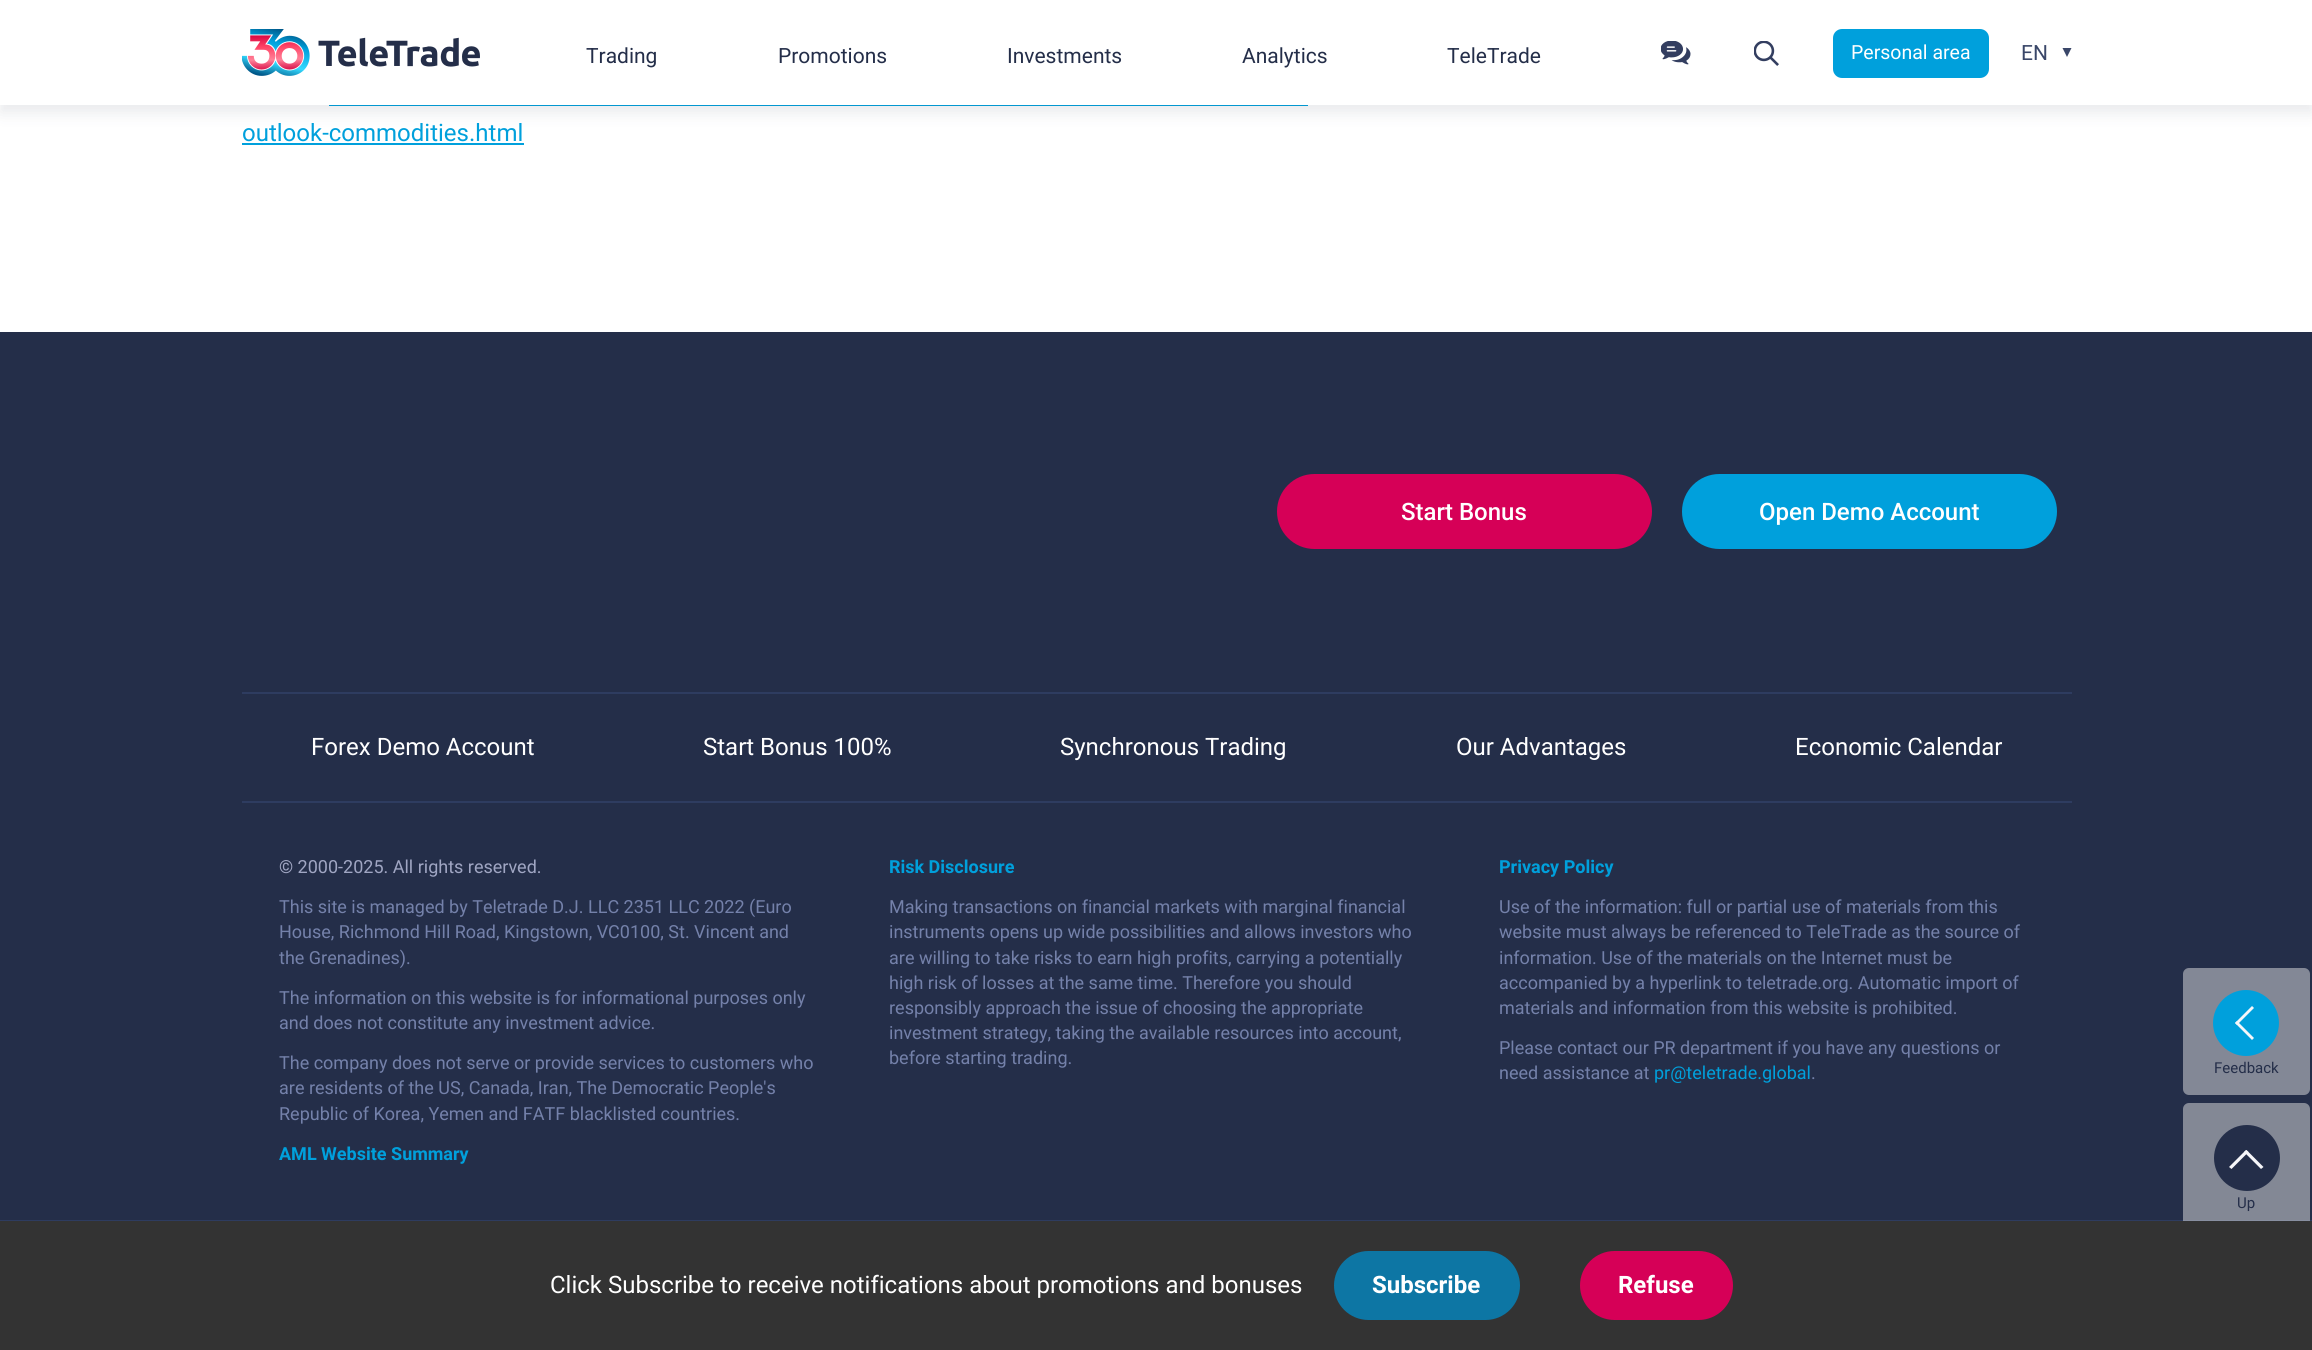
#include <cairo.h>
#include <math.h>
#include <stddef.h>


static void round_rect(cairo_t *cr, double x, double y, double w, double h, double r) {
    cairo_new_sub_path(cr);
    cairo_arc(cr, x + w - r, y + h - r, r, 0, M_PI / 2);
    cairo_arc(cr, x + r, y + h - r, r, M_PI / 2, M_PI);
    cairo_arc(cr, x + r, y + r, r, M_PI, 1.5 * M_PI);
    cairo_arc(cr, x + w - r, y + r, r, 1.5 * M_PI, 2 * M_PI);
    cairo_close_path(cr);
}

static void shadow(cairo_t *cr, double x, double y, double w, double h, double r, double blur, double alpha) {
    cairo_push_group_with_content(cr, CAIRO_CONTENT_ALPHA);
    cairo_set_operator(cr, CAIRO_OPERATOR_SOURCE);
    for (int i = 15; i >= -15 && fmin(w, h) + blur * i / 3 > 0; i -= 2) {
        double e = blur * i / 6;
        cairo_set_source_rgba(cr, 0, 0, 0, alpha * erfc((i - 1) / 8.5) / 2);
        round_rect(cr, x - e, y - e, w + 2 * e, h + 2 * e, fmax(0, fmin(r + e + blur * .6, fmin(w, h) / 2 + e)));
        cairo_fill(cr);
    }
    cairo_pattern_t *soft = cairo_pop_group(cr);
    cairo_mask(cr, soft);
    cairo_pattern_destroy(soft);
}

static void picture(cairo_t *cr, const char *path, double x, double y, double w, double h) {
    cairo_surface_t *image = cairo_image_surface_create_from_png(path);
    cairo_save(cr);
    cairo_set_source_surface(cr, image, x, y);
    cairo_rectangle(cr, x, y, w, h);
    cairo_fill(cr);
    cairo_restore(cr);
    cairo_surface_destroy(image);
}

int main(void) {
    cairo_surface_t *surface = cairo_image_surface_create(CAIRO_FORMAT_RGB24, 2312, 1350);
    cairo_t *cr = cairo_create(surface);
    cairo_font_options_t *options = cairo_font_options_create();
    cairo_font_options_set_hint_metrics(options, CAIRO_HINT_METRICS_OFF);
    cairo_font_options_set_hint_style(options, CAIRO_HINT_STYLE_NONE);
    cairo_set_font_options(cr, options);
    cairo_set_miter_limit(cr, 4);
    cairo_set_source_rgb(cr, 1, 1, 1);
    cairo_paint(cr);
    cairo_set_source_rgb(cr, 0, 0.627, 0.863);
    cairo_rectangle(cr, 329, 105, 979, 1);
    cairo_fill(cr);
    cairo_set_source_rgb(cr, 0.141, 0.18, 0.286);
    shadow(cr, 0, 8, 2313, 105, 0, 7.5, 0.1);
    cairo_set_source_rgb(cr, 1, 1, 1);
    cairo_rectangle(cr, 0, 0, 2312, 105);
    cairo_fill(cr);
    picture(cr, "img1.png", 242, 29, 238, 47);
    cairo_select_font_face(cr, "Roboto", CAIRO_FONT_SLANT_NORMAL, CAIRO_FONT_WEIGHT_NORMAL);
    cairo_set_font_size(cr, 21);
    cairo_set_source_rgb(cr, 0.141, 0.18, 0.286);
    cairo_move_to(cr, 586, 63);
    cairo_show_text(cr, "Trading");
    cairo_move_to(cr, 778, 63);
    cairo_show_text(cr, "Promotions");
    cairo_move_to(cr, 1007, 63);
    cairo_show_text(cr, "Investments");
    cairo_move_to(cr, 1242, 63);
    cairo_show_text(cr, "Analytics");
    cairo_move_to(cr, 1447, 63);
    cairo_show_text(cr, "TeleTrade");
    picture(cr, "img2.png", 1661, 41, 30, 24);
    picture(cr, "img3.png", 1754, 41, 25, 25);
    cairo_set_source_rgb(cr, 0, 0.627, 0.863);
    round_rect(cr, 1833, 29, 156, 49, 9);
    cairo_fill(cr);
    cairo_set_font_size(cr, 19.5);
    cairo_set_source_rgb(cr, 1, 1, 1);
    cairo_move_to(cr, 1851, 59);
    cairo_show_text(cr, "Personal area");
    cairo_set_font_size(cr, 21);
    cairo_set_source_rgb(cr, 0.227, 0.278, 0.412);
    cairo_move_to(cr, 2021, 60);
    cairo_show_text(cr, "EN");
    cairo_new_path(cr);
    cairo_move_to(cr, 2062.5, 48);
    cairo_line_to(cr, 2071.5, 48);
    cairo_line_to(cr, 2067, 57);
    cairo_close_path(cr);
    cairo_fill(cr);
    cairo_set_font_size(cr, 24);
    cairo_set_source_rgb(cr, 0, 0.627, 0.863);
    cairo_move_to(cr, 242, 141);
    cairo_show_text(cr, "outlook-commodities.html");
    cairo_rectangle(cr, 242, 143, 282, 2);
    cairo_fill(cr);
    cairo_set_source_rgb(cr, 0.141, 0.18, 0.286);
    cairo_rectangle(cr, 0, 332, 2312, 888);
    cairo_fill(cr);
    cairo_set_source_rgb(cr, 0.839, 0, 0.341);
    round_rect(cr, 1277, 474, 375, 75, 37.5);
    cairo_fill(cr);
    cairo_select_font_face(cr, "Roboto Medium", CAIRO_FONT_SLANT_NORMAL, CAIRO_FONT_WEIGHT_NORMAL);
    cairo_set_source_rgb(cr, 1, 1, 1);
    cairo_move_to(cr, 1401, 520);
    cairo_show_text(cr, "Start Bonus");
    cairo_set_source_rgb(cr, 0, 0.627, 0.863);
    round_rect(cr, 1682, 474, 375, 75, 37.5);
    cairo_fill(cr);
    cairo_set_source_rgb(cr, 1, 1, 1);
    cairo_move_to(cr, 1759, 520);
    cairo_show_text(cr, "Open Demo Account");
    cairo_set_source_rgb(cr, 0.18, 0.235, 0.376);
    cairo_rectangle(cr, 242, 692, 1830, 2);
    cairo_fill(cr);
    cairo_select_font_face(cr, "Roboto", CAIRO_FONT_SLANT_NORMAL, CAIRO_FONT_WEIGHT_NORMAL);
    cairo_set_source_rgb(cr, 1, 1, 1);
    cairo_move_to(cr, 311, 755);
    cairo_show_text(cr, "Forex Demo Account");
    cairo_move_to(cr, 703, 755);
    cairo_show_text(cr, "Start Bonus 100%");
    cairo_move_to(cr, 1060, 755);
    cairo_show_text(cr, "Synchronous Trading");
    cairo_move_to(cr, 1456, 755);
    cairo_show_text(cr, "Our Advantages");
    cairo_move_to(cr, 1795, 755);
    cairo_show_text(cr, "Economic Calendar");
    cairo_set_source_rgb(cr, 0.18, 0.235, 0.376);
    cairo_rectangle(cr, 242, 801, 1830, 2);
    cairo_fill(cr);
    cairo_set_font_size(cr, 18);
    cairo_set_source_rgb(cr, 0.627, 0.651, 0.765);
    cairo_move_to(cr, 279, 873);
    cairo_show_text(cr, "© 2000-2025. All rights reserved.");
    cairo_set_source_rgb(cr, 0.455, 0.506, 0.667);
    cairo_move_to(cr, 279, 913);
    cairo_show_text(cr, "This site is managed by Teletrade D.J. LLC 2351 LLC 2022 (Euro");
    cairo_move_to(cr, 279, 938);
    cairo_show_text(cr, "House, Richmond Hill Road, Kingstown, VC0100, St. Vincent and");
    cairo_move_to(cr, 279, 964);
    cairo_show_text(cr, "the Grenadines).");
    cairo_move_to(cr, 279, 1004);
    cairo_show_text(cr, "The information on this website is for informational purposes only");
    cairo_move_to(cr, 279, 1029);
    cairo_show_text(cr, "and does not constitute any investment advice.");
    cairo_move_to(cr, 279, 1069);
    cairo_show_text(cr, "The company does not serve or provide services to customers who");
    cairo_move_to(cr, 279, 1094);
    cairo_show_text(cr, "are residents of the US, Canada, Iran, The Democratic People's");
    cairo_move_to(cr, 279, 1120);
    cairo_show_text(cr, "Republic of Korea, Yemen and FATF blacklisted countries.");
    cairo_select_font_face(cr, "Roboto", CAIRO_FONT_SLANT_NORMAL, CAIRO_FONT_WEIGHT_BOLD);
    cairo_set_source_rgb(cr, 0, 0.627, 0.863);
    cairo_move_to(cr, 279, 1160);
    cairo_show_text(cr, "AML Website Summary");
    cairo_move_to(cr, 889, 873);
    cairo_show_text(cr, "Risk Disclosure");
    cairo_select_font_face(cr, "Roboto", CAIRO_FONT_SLANT_NORMAL, CAIRO_FONT_WEIGHT_NORMAL);
    cairo_set_source_rgb(cr, 0.455, 0.506, 0.667);
    cairo_move_to(cr, 889, 913);
    cairo_show_text(cr, "Making transactions on financial markets with marginal financial");
    cairo_move_to(cr, 889, 938);
    cairo_show_text(cr, "instruments opens up wide possibilities and allows investors who");
    cairo_move_to(cr, 889, 964);
    cairo_show_text(cr, "are willing to take risks to earn high profits, carrying a potentially");
    cairo_move_to(cr, 889, 989);
    cairo_show_text(cr, "high risk of losses at the same time. Therefore you should");
    cairo_move_to(cr, 889, 1014);
    cairo_show_text(cr, "responsibly approach the issue of choosing the appropriate");
    cairo_move_to(cr, 889, 1039);
    cairo_show_text(cr, "investment strategy, taking the available resources into account,");
    cairo_move_to(cr, 889, 1064);
    cairo_show_text(cr, "before starting trading.");
    cairo_select_font_face(cr, "Roboto", CAIRO_FONT_SLANT_NORMAL, CAIRO_FONT_WEIGHT_BOLD);
    cairo_set_source_rgb(cr, 0, 0.627, 0.863);
    cairo_move_to(cr, 1499, 873);
    cairo_show_text(cr, "Privacy Policy");
    cairo_select_font_face(cr, "Roboto", CAIRO_FONT_SLANT_NORMAL, CAIRO_FONT_WEIGHT_NORMAL);
    cairo_set_source_rgb(cr, 0.455, 0.506, 0.667);
    cairo_move_to(cr, 1499, 913);
    cairo_show_text(cr, "Use of the information: full or partial use of materials from this");
    cairo_move_to(cr, 1499, 938);
    cairo_show_text(cr, "website must always be referenced to TeleTrade as the source of");
    cairo_move_to(cr, 1499, 964);
    cairo_show_text(cr, "information. Use of the materials on the Internet must be");
    cairo_move_to(cr, 1499, 989);
    cairo_show_text(cr, "accompanied by a hyperlink to teletrade.org. Automatic import of");
    cairo_move_to(cr, 1499, 1014);
    cairo_show_text(cr, "materials and information from this website is prohibited.");
    cairo_move_to(cr, 1499, 1054);
    cairo_show_text(cr, "Please contact our PR department if you have any questions or");
    cairo_move_to(cr, 1499, 1079);
    cairo_show_text(cr, "need assistance at");
    cairo_set_source_rgb(cr, 0, 0.627, 0.863);
    cairo_move_to(cr, 1654, 1079);
    cairo_show_text(cr, "pr@teletrade.global");
    cairo_set_source_rgb(cr, 0.455, 0.506, 0.667);
    cairo_move_to(cr, 1811, 1079);
    cairo_show_text(cr, ".");
    cairo_set_source_rgb(cr, 0.18, 0.235, 0.376);
    cairo_rectangle(cr, 0, 1220, 2312, 1);
    cairo_fill(cr);
    cairo_set_source_rgb(cr, 0.514, 0.533, 0.588);
    round_rect(cr, 2183, 968, 127, 127, 6);
    cairo_fill(cr);
    cairo_set_source_rgb(cr, 0, 0.627, 0.863);
    cairo_new_path(cr);
    cairo_move_to(cr, 2213, 1023);
    cairo_curve_to(cr, 2213, 1005, 2228, 990, 2246, 990);
    cairo_curve_to(cr, 2264, 990, 2279, 1005, 2279, 1023);
    cairo_curve_to(cr, 2279, 1041, 2264, 1056, 2246, 1056);
    cairo_curve_to(cr, 2228, 1056, 2213, 1041, 2213, 1023);
    cairo_close_path(cr);
    cairo_fill(cr);
    cairo_set_source_rgb(cr, 0.961, 0.961, 0.973);
    cairo_new_path(cr);
    cairo_move_to(cr, 2252, 1040);
    cairo_line_to(cr, 2235, 1023);
    cairo_line_to(cr, 2237, 1021);
    cairo_line_to(cr, 2254, 1038);
    cairo_close_path(cr);
    cairo_fill(cr);
    cairo_new_path(cr);
    cairo_move_to(cr, 2235, 1023);
    cairo_line_to(cr, 2252, 1006);
    cairo_line_to(cr, 2254, 1008);
    cairo_line_to(cr, 2237, 1025);
    cairo_close_path(cr);
    cairo_fill(cr);
    cairo_set_font_size(cr, 15);
    cairo_set_source_rgb(cr, 0.141, 0.18, 0.286);
    cairo_move_to(cr, 2214, 1073);
    cairo_show_text(cr, "Feedback");
    cairo_set_source_rgba(cr, 0.886, 0.886, 0.886, 0.5);
    round_rect(cr, 2183, 1103, 127, 127, 6);
    cairo_fill(cr);
    cairo_set_source_rgb(cr, 0.141, 0.18, 0.286);
    cairo_arc(cr, 2247, 1158, 33, 0, 2 * M_PI);
    cairo_fill(cr);
    cairo_set_source_rgb(cr, 0.961, 0.961, 0.973);
    cairo_new_path(cr);
    cairo_move_to(cr, 2229, 1167);
    cairo_line_to(cr, 2246, 1150);
    cairo_line_to(cr, 2248.5, 1152);
    cairo_line_to(cr, 2231.5, 1169);
    cairo_close_path(cr);
    cairo_fill(cr);
    cairo_new_path(cr);
    cairo_move_to(cr, 2246.5, 1150);
    cairo_line_to(cr, 2263.5, 1167);
    cairo_line_to(cr, 2261, 1169);
    cairo_line_to(cr, 2244, 1152);
    cairo_close_path(cr);
    cairo_fill(cr);
    cairo_set_source_rgb(cr, 0.141, 0.18, 0.286);
    cairo_move_to(cr, 2237, 1208);
    cairo_show_text(cr, "Up");
    cairo_set_source_rgb(cr, 0.2, 0.2, 0.2);
    cairo_rectangle(cr, 0, 1221, 2312, 129);
    cairo_fill(cr);
    cairo_set_font_size(cr, 24);
    cairo_set_source_rgb(cr, 1, 1, 1);
    cairo_move_to(cr, 550, 1293);
    cairo_show_text(cr, "Click Subscribe to receive notifications about promotions and bonuses");
    cairo_set_source_rgb(cr, 0.051, 0.463, 0.643);
    round_rect(cr, 1334, 1251, 186, 69, 34.5);
    cairo_fill(cr);
    cairo_select_font_face(cr, "Roboto", CAIRO_FONT_SLANT_NORMAL, CAIRO_FONT_WEIGHT_BOLD);
    cairo_set_source_rgb(cr, 1, 1, 1);
    cairo_move_to(cr, 1372, 1293);
    cairo_show_text(cr, "Subscribe");
    cairo_set_source_rgb(cr, 0.839, 0, 0.341);
    round_rect(cr, 1580, 1251, 153, 69, 34.5);
    cairo_fill(cr);
    cairo_set_source_rgb(cr, 1, 1, 1);
    cairo_move_to(cr, 1618, 1293);
    cairo_show_text(cr, "Refuse");
    cairo_surface_write_to_png(surface, "page.png");
    cairo_font_options_destroy(options);
    cairo_destroy(cr);
    cairo_surface_destroy(surface);
    return 0;
}
